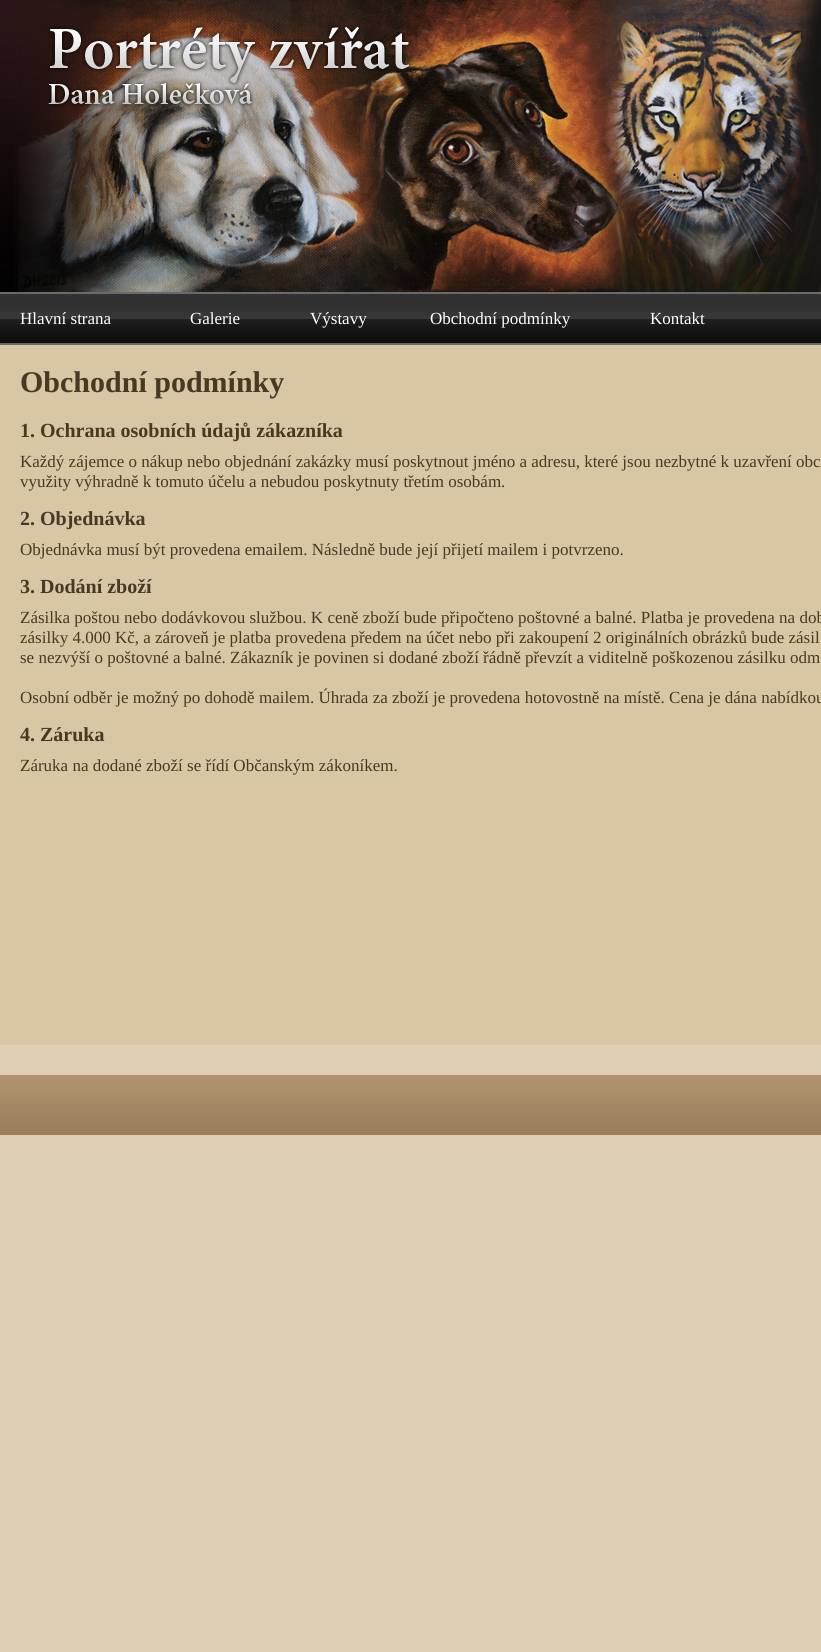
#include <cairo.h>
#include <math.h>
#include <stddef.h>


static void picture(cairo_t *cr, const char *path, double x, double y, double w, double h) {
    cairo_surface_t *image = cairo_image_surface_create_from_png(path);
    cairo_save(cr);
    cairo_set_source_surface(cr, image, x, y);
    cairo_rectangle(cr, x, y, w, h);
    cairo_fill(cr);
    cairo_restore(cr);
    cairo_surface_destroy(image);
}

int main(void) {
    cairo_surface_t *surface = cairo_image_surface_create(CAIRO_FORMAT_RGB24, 821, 1652);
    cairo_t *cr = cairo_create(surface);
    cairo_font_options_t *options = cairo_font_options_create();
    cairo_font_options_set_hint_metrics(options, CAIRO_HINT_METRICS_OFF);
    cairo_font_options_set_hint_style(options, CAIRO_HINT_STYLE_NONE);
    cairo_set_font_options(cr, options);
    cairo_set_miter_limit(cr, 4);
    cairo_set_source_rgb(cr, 0.875, 0.812, 0.71);
    cairo_paint(cr);
    picture(cr, "img1.png", 0, 0, 821, 345);
    picture(cr, "img2.png", 14, 0, 807, 292);
    cairo_select_font_face(cr, "Liberation Serif", CAIRO_FONT_SLANT_NORMAL, CAIRO_FONT_WEIGHT_NORMAL);
    cairo_set_font_size(cr, 17);
    cairo_set_source_rgb(cr, 1, 1, 1);
    cairo_move_to(cr, 20, 324);
    cairo_show_text(cr, "Hlavní strana");
    cairo_move_to(cr, 190, 324);
    cairo_show_text(cr, "Galerie");
    cairo_move_to(cr, 310, 324);
    cairo_show_text(cr, "Výstavy");
    cairo_move_to(cr, 430, 324);
    cairo_show_text(cr, "Obchodní podmínky");
    cairo_move_to(cr, 650, 324);
    cairo_show_text(cr, "Kontakt");
    cairo_set_source_rgb(cr, 0.847, 0.776, 0.647);
    cairo_rectangle(cr, 0, 345, 821, 700);
    cairo_fill(cr);
    cairo_select_font_face(cr, "Liberation Serif", CAIRO_FONT_SLANT_NORMAL, CAIRO_FONT_WEIGHT_BOLD);
    cairo_set_font_size(cr, 30);
    cairo_set_source_rgb(cr, 0.278, 0.224, 0.137);
    cairo_move_to(cr, 20, 392);
    cairo_show_text(cr, "Obchodní podmínky");
    cairo_set_font_size(cr, 20);
    cairo_move_to(cr, 20, 437);
    cairo_show_text(cr, "1. Ochrana osobních údajů zákazníka");
    cairo_select_font_face(cr, "Liberation Serif", CAIRO_FONT_SLANT_NORMAL, CAIRO_FONT_WEIGHT_NORMAL);
    cairo_set_font_size(cr, 17);
    cairo_move_to(cr, 20, 467);
    cairo_show_text(cr, "Každý zájemce o nákup nebo objednání zakázky musí poskytnout jméno a adresu, které jsou nezbytné k uzavření obc");
    cairo_move_to(cr, 20, 487);
    cairo_show_text(cr, "využity výhradně k tomuto účelu a nebudou poskytnuty třetím osobám.");
    cairo_select_font_face(cr, "Liberation Serif", CAIRO_FONT_SLANT_NORMAL, CAIRO_FONT_WEIGHT_BOLD);
    cairo_set_font_size(cr, 20);
    cairo_move_to(cr, 20, 525);
    cairo_show_text(cr, "2. Objednávka");
    cairo_select_font_face(cr, "Liberation Serif", CAIRO_FONT_SLANT_NORMAL, CAIRO_FONT_WEIGHT_NORMAL);
    cairo_set_font_size(cr, 17);
    cairo_move_to(cr, 20, 555);
    cairo_show_text(cr, "Objednávka musí být provedena emailem. Následně bude její přijetí mailem i potvrzeno.");
    cairo_select_font_face(cr, "Liberation Serif", CAIRO_FONT_SLANT_NORMAL, CAIRO_FONT_WEIGHT_BOLD);
    cairo_set_font_size(cr, 20);
    cairo_move_to(cr, 20, 593);
    cairo_show_text(cr, "3. Dodání zboží");
    cairo_select_font_face(cr, "Liberation Serif", CAIRO_FONT_SLANT_NORMAL, CAIRO_FONT_WEIGHT_NORMAL);
    cairo_set_font_size(cr, 17);
    cairo_move_to(cr, 20, 623);
    cairo_show_text(cr, "Zásilka poštou nebo dodávkovou službou. K ceně zboží bude připočteno poštovné a balné. Platba je provedena na dob");
    cairo_move_to(cr, 20, 643);
    cairo_show_text(cr, "zásilky 4.000 Kč, a zároveň je platba provedena předem na účet nebo při zakoupení 2 originálních obrázků bude zásil");
    cairo_move_to(cr, 20, 663);
    cairo_show_text(cr, "se nezvýší o poštovné a balné. Zákazník je povinen si dodané zboží řádně převzít a viditelně poškozenou zásilku odm");
    cairo_move_to(cr, 20, 703);
    cairo_show_text(cr, "Osobní odběr je možný po dohodě mailem. Úhrada za zboží je provedena hotovostně na místě. Cena je dána nabídkou");
    cairo_select_font_face(cr, "Liberation Serif", CAIRO_FONT_SLANT_NORMAL, CAIRO_FONT_WEIGHT_BOLD);
    cairo_set_font_size(cr, 20);
    cairo_move_to(cr, 20, 741);
    cairo_show_text(cr, "4. Záruka");
    cairo_select_font_face(cr, "Liberation Serif", CAIRO_FONT_SLANT_NORMAL, CAIRO_FONT_WEIGHT_NORMAL);
    cairo_set_font_size(cr, 17);
    cairo_move_to(cr, 20, 771);
    cairo_show_text(cr, "Záruka na dodané zboží se řídí Občanským zákoníkem.");
    picture(cr, "img3.png", 0, 1075, 821, 60);
    cairo_surface_write_to_png(surface, "page.png");
    cairo_font_options_destroy(options);
    cairo_destroy(cr);
    cairo_surface_destroy(surface);
    return 0;
}
